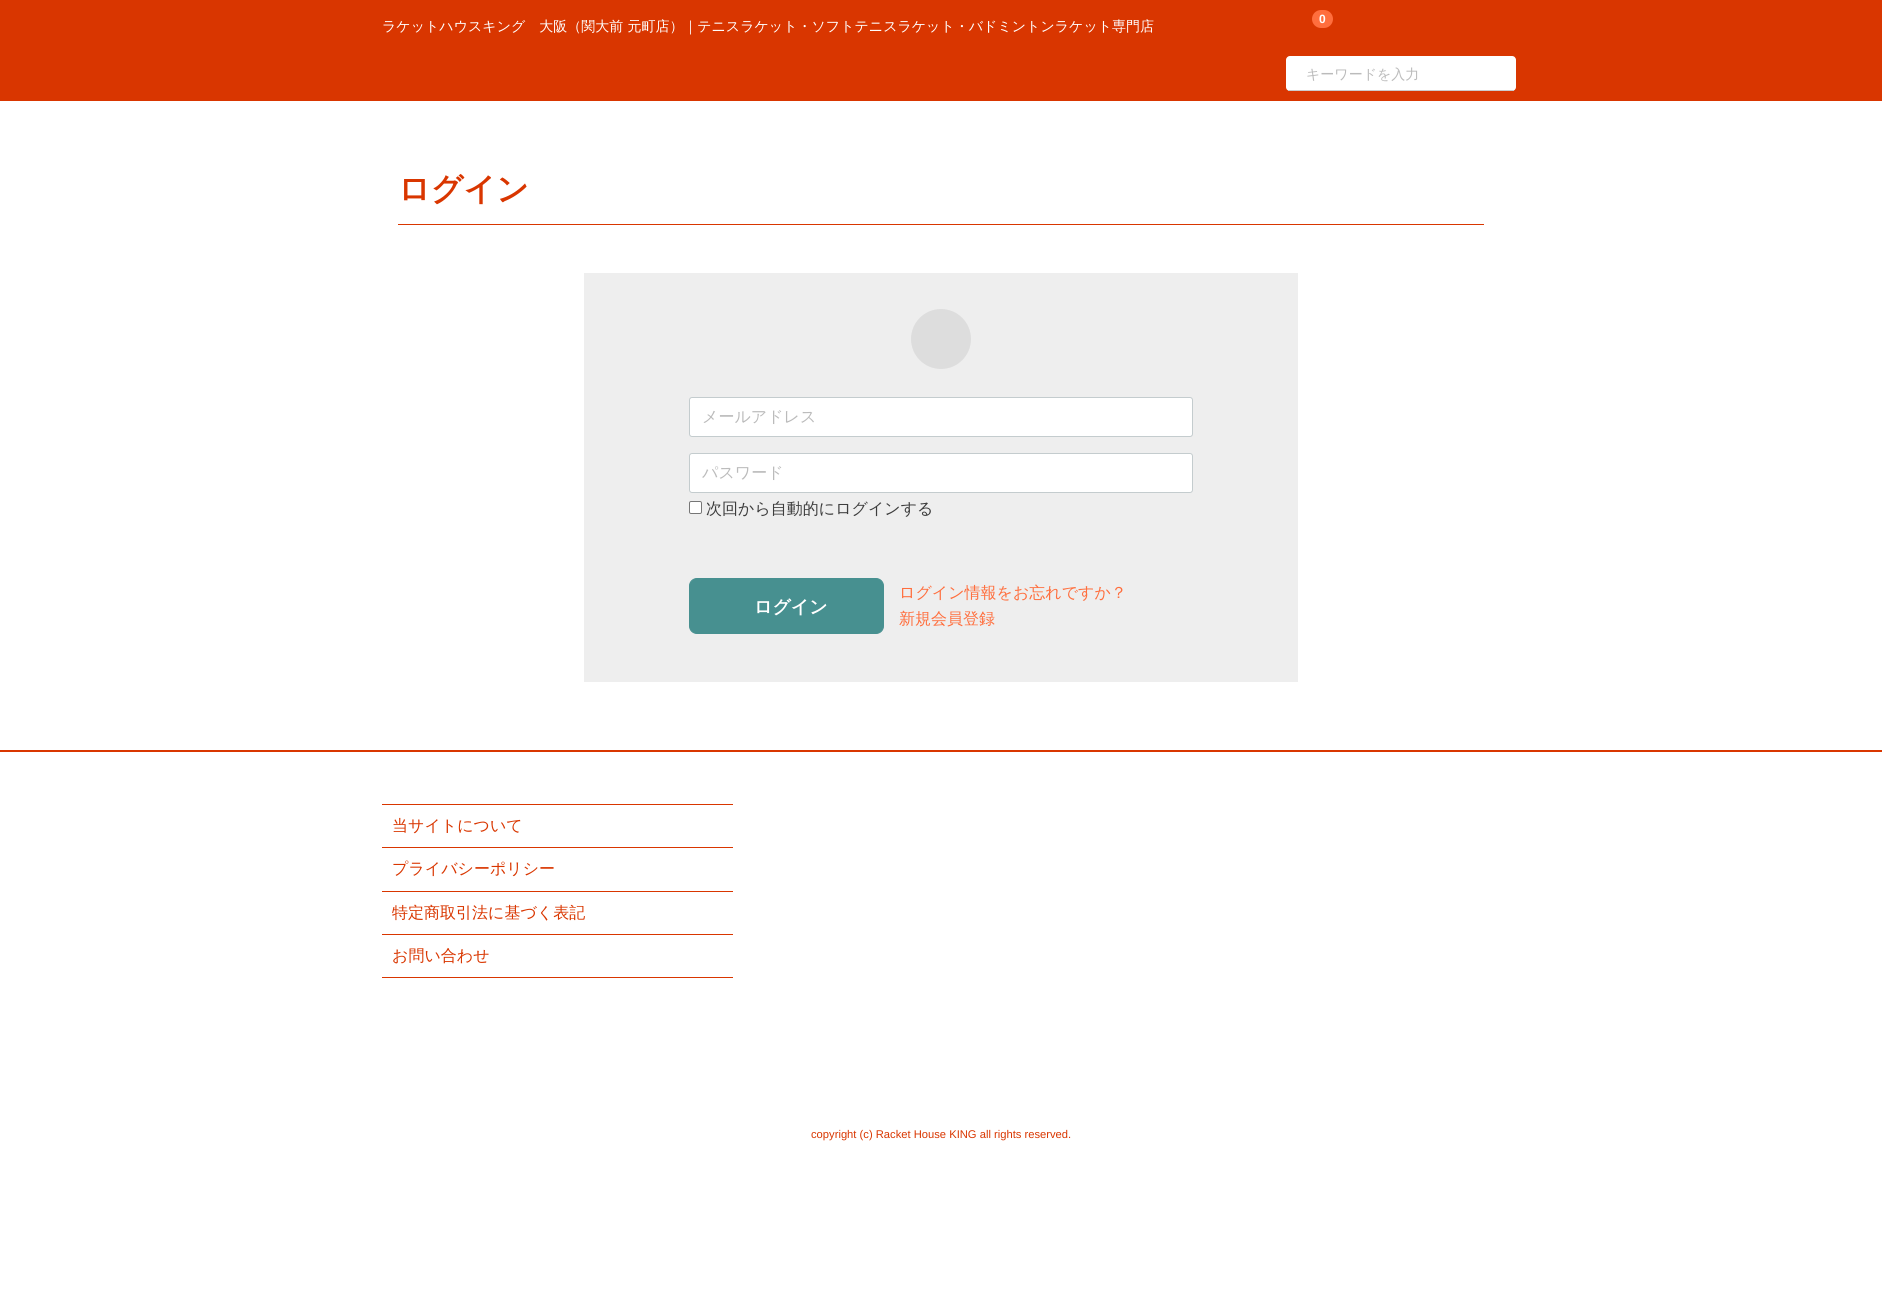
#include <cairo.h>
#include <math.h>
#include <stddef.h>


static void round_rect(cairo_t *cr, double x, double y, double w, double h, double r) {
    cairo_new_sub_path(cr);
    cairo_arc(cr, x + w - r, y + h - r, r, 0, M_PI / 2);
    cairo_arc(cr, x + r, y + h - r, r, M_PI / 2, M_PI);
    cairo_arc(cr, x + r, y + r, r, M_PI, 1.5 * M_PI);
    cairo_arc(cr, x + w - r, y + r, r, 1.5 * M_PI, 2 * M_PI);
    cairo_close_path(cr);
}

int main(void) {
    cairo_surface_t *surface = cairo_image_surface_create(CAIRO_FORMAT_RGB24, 1882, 1292);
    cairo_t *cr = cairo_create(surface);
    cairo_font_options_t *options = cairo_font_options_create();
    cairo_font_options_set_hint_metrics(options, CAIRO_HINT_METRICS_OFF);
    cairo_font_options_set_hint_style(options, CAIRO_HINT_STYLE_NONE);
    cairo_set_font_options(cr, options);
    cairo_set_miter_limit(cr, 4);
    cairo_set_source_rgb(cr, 1, 1, 1);
    cairo_paint(cr);
    cairo_set_source_rgb(cr, 0.851, 0.212, 0);
    cairo_rectangle(cr, 0, 0, 1882, 101);
    cairo_fill(cr);
    cairo_select_font_face(cr, "WenQuanYi Zen Hei Medium", CAIRO_FONT_SLANT_NORMAL, CAIRO_FONT_WEIGHT_NORMAL);
    cairo_set_font_size(cr, 14);
    cairo_set_source_rgb(cr, 1, 1, 1);
    cairo_move_to(cr, 382, 31);
    cairo_show_text(cr, "ラケットハウスキング　大阪（関大前 元町店）｜テニスラケット・ソフトテニスラケット・バドミントンラケット専門店");
    cairo_set_source_rgb(cr, 1, 0.431, 0.239);
    round_rect(cr, 1312, 10, 21, 18, 9);
    cairo_fill(cr);
    cairo_select_font_face(cr, "Liberation Sans", CAIRO_FONT_SLANT_NORMAL, CAIRO_FONT_WEIGHT_BOLD);
    cairo_set_font_size(cr, 12);
    cairo_set_source_rgb(cr, 1, 1, 1);
    cairo_move_to(cr, 1319, 23);
    cairo_show_text(cr, "0");
    round_rect(cr, 1286, 56, 230, 35, 4);
    cairo_fill(cr);
    cairo_set_source_rgb(cr, 0.8, 0.8, 0.8);
    cairo_rectangle(cr, 1288, 90, 226, 1);
    cairo_fill(cr);
    cairo_select_font_face(cr, "WenQuanYi Zen Hei Medium", CAIRO_FONT_SLANT_NORMAL, CAIRO_FONT_WEIGHT_NORMAL);
    cairo_set_font_size(cr, 14);
    cairo_set_source_rgb(cr, 0.733, 0.733, 0.733);
    cairo_move_to(cr, 1306, 79);
    cairo_show_text(cr, "キーワードを入力");
    cairo_set_source_rgb(cr, 0.851, 0.212, 0);
    cairo_rectangle(cr, 398, 224, 1086, 1);
    cairo_fill(cr);
    cairo_select_font_face(cr, "WenQuanYi Zen Hei", CAIRO_FONT_SLANT_NORMAL, CAIRO_FONT_WEIGHT_BOLD);
    cairo_set_font_size(cr, 32);
    cairo_move_to(cr, 398, 200);
    cairo_show_text(cr, "ログイン");
    cairo_set_source_rgb(cr, 0.933, 0.933, 0.933);
    cairo_rectangle(cr, 584, 273, 714, 409);
    cairo_fill(cr);
    cairo_set_source_rgb(cr, 0.867, 0.867, 0.867);
    cairo_arc(cr, 941, 339, 30, 0, 2 * M_PI);
    cairo_fill(cr);
    cairo_set_source_rgb(cr, 1, 1, 1);
    round_rect(cr, 689.5, 397.5, 503, 39, 2.5);
    cairo_fill_preserve(cr);
    cairo_set_source_rgb(cr, 0.769, 0.8, 0.808);
    cairo_set_line_width(cr, 1);
    cairo_stroke(cr);
    cairo_select_font_face(cr, "WenQuanYi Zen Hei Medium", CAIRO_FONT_SLANT_NORMAL, CAIRO_FONT_WEIGHT_NORMAL);
    cairo_set_font_size(cr, 16);
    cairo_set_source_rgb(cr, 0.733, 0.733, 0.733);
    cairo_move_to(cr, 702, 422);
    cairo_show_text(cr, "メールアドレス");
    cairo_set_source_rgb(cr, 1, 1, 1);
    round_rect(cr, 689.5, 453.5, 503, 39, 2.5);
    cairo_fill_preserve(cr);
    cairo_set_source_rgb(cr, 0.769, 0.8, 0.808);
    cairo_stroke(cr);
    cairo_set_source_rgb(cr, 0.733, 0.733, 0.733);
    cairo_move_to(cr, 702, 478);
    cairo_show_text(cr, "パスワード");
    cairo_set_source_rgb(cr, 1, 1, 1);
    round_rect(cr, 689.5, 501.5, 12, 12, 1.5);
    cairo_fill_preserve(cr);
    cairo_set_source_rgb(cr, 0.463, 0.463, 0.463);
    cairo_stroke(cr);
    cairo_set_source_rgb(cr, 0.239, 0.239, 0.239);
    cairo_move_to(cr, 706, 514);
    cairo_show_text(cr, "次回から自動的にログインする");
    cairo_set_source_rgb(cr, 0.278, 0.565, 0.565);
    round_rect(cr, 689.5, 578.5, 194, 55, 7.5);
    cairo_fill_preserve(cr);
    cairo_stroke(cr);
    cairo_select_font_face(cr, "WenQuanYi Zen Hei", CAIRO_FONT_SLANT_NORMAL, CAIRO_FONT_WEIGHT_BOLD);
    cairo_set_font_size(cr, 18);
    cairo_set_source_rgb(cr, 1, 1, 1);
    cairo_move_to(cr, 754, 613);
    cairo_show_text(cr, "ログイン");
    cairo_select_font_face(cr, "WenQuanYi Zen Hei Medium", CAIRO_FONT_SLANT_NORMAL, CAIRO_FONT_WEIGHT_NORMAL);
    cairo_set_font_size(cr, 16);
    cairo_set_source_rgb(cr, 1, 0.431, 0.239);
    cairo_move_to(cr, 899, 598);
    cairo_show_text(cr, "ログイン情報をお忘れですか？");
    cairo_move_to(cr, 899, 624);
    cairo_show_text(cr, "新規会員登録");
    cairo_set_source_rgb(cr, 0.851, 0.212, 0);
    cairo_rectangle(cr, 0, 750, 1882, 2);
    cairo_fill(cr);
    cairo_rectangle(cr, 382, 804, 351, 1);
    cairo_fill(cr);
    cairo_rectangle(cr, 382, 847, 351, 1);
    cairo_fill(cr);
    cairo_move_to(cr, 392, 831);
    cairo_show_text(cr, "当サイトについて");
    cairo_rectangle(cr, 382, 891, 351, 1);
    cairo_fill(cr);
    cairo_move_to(cr, 392, 874);
    cairo_show_text(cr, "プライバシーポリシー");
    cairo_rectangle(cr, 382, 934, 351, 1);
    cairo_fill(cr);
    cairo_move_to(cr, 392, 918);
    cairo_show_text(cr, "特定商取引法に基づく表記");
    cairo_rectangle(cr, 382, 977, 351, 1);
    cairo_fill(cr);
    cairo_move_to(cr, 392, 961);
    cairo_show_text(cr, "お問い合わせ");
    cairo_select_font_face(cr, "Liberation Sans", CAIRO_FONT_SLANT_NORMAL, CAIRO_FONT_WEIGHT_NORMAL);
    cairo_set_font_size(cr, 11.2);
    cairo_move_to(cr, 811, 1138);
    cairo_show_text(cr, "copyright (c) Racket House KING all rights reserved.");
    cairo_surface_write_to_png(surface, "page.png");
    cairo_font_options_destroy(options);
    cairo_destroy(cr);
    cairo_surface_destroy(surface);
    return 0;
}
